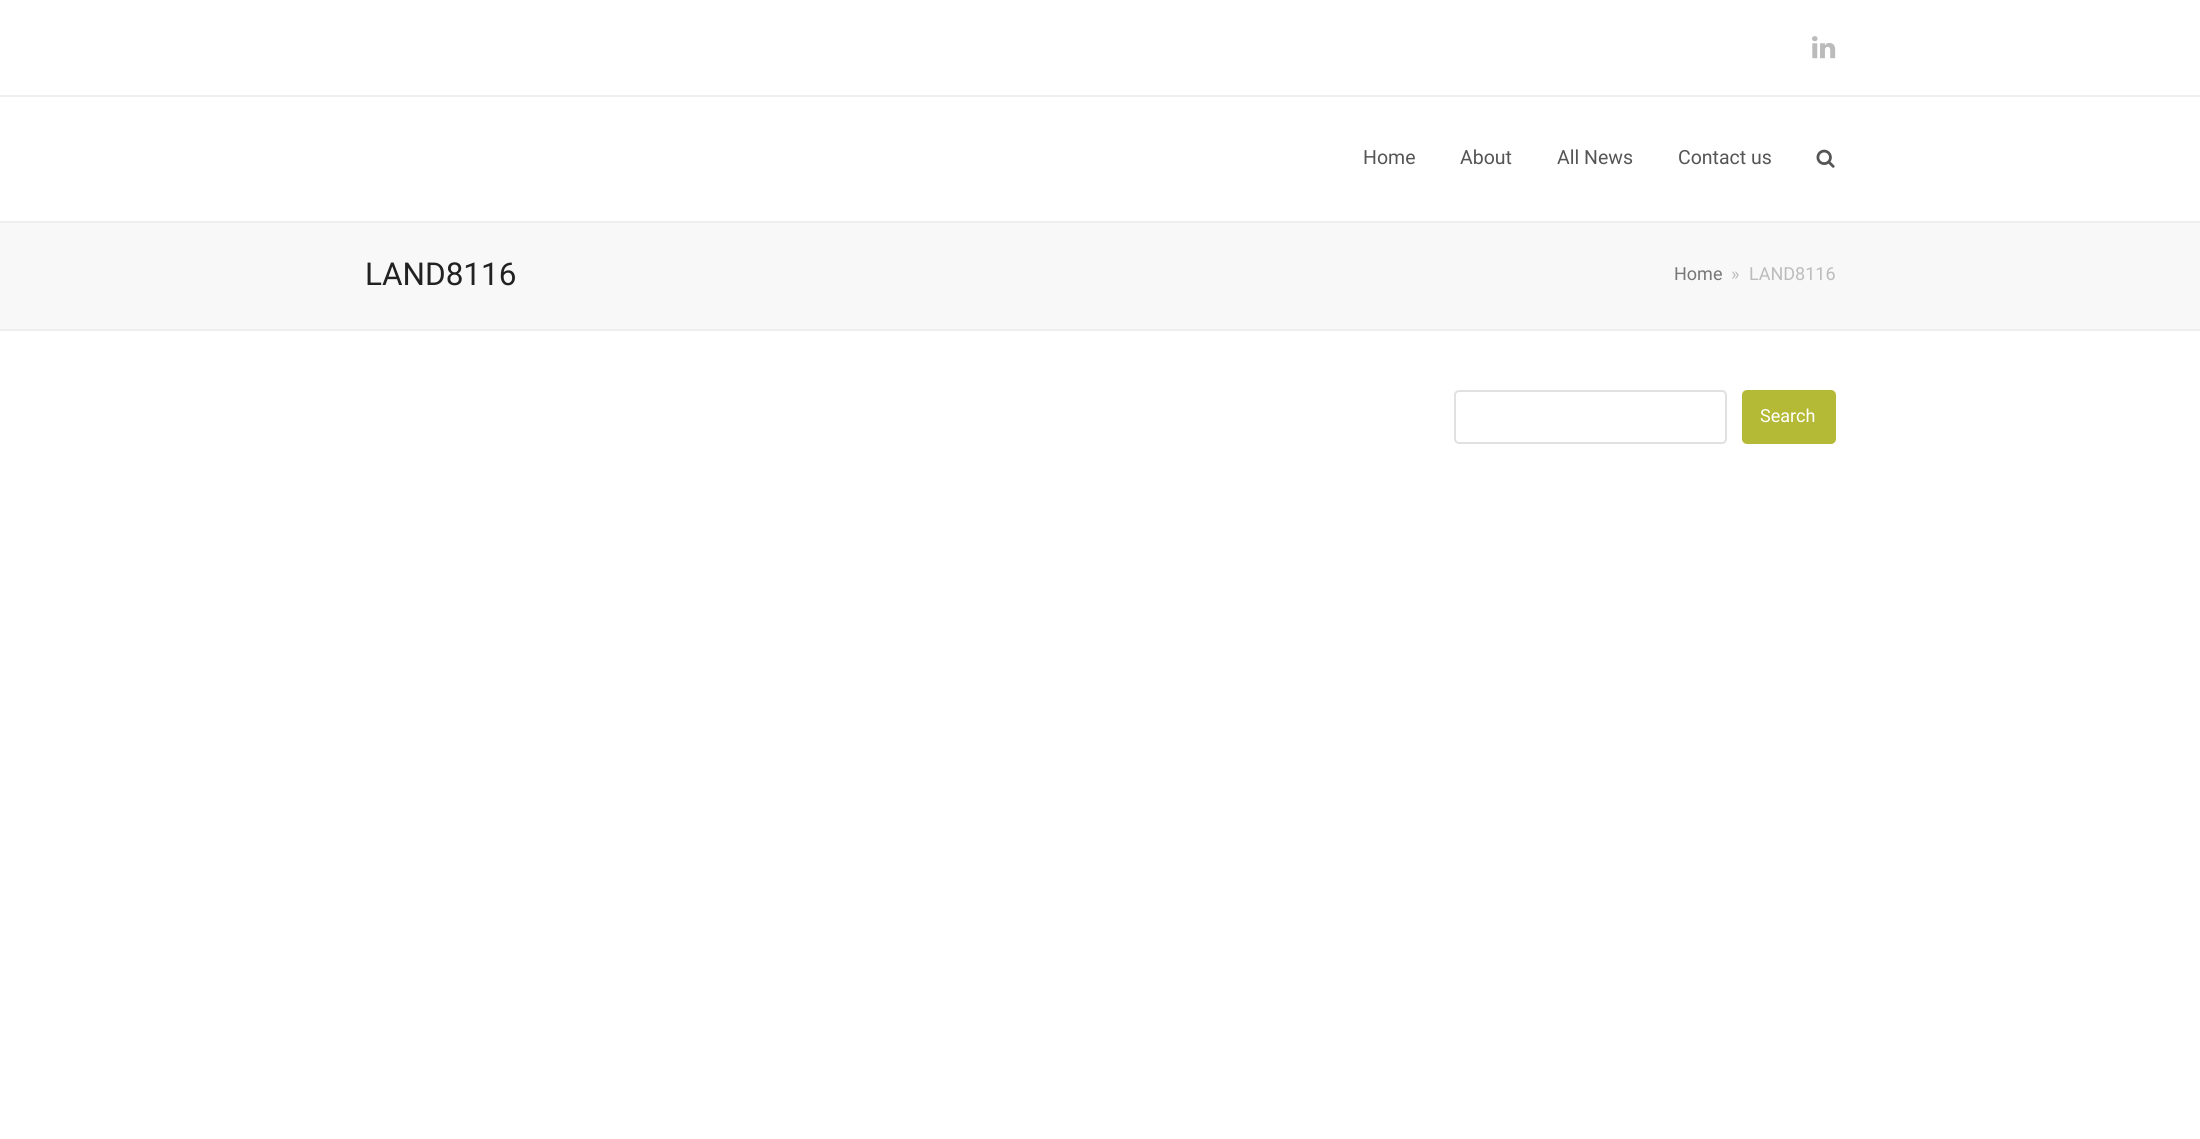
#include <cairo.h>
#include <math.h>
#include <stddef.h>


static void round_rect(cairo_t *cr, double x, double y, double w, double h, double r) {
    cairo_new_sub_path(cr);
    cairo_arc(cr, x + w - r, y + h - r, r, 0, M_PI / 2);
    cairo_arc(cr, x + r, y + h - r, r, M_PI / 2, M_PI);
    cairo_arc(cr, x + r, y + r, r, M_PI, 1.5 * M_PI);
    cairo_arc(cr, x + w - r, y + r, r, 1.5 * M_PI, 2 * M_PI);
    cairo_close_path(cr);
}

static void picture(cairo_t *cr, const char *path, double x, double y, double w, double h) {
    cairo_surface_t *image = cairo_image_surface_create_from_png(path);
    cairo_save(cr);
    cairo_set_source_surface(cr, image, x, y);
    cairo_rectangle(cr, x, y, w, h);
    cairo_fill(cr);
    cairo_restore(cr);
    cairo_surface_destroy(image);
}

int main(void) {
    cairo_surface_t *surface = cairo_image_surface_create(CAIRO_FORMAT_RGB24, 2200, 1139);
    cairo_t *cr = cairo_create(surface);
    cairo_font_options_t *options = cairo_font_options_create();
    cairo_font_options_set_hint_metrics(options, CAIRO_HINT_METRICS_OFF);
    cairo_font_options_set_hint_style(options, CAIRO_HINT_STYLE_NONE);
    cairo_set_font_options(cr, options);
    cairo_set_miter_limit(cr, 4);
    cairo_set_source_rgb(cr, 1, 1, 1);
    cairo_paint(cr);
    cairo_set_source_rgb(cr, 0.933, 0.933, 0.933);
    cairo_rectangle(cr, 0, 95, 2200, 2);
    cairo_fill(cr);
    picture(cr, "img1.png", 1812, 36, 24, 23);
    cairo_select_font_face(cr, "Roboto", CAIRO_FONT_SLANT_NORMAL, CAIRO_FONT_WEIGHT_NORMAL);
    cairo_set_font_size(cr, 19.5);
    cairo_set_source_rgb(cr, 0.333, 0.333, 0.333);
    cairo_move_to(cr, 1363, 164);
    cairo_show_text(cr, "Home");
    cairo_move_to(cr, 1460, 164);
    cairo_show_text(cr, "About");
    cairo_move_to(cr, 1557, 164);
    cairo_show_text(cr, "All News");
    cairo_move_to(cr, 1678, 164);
    cairo_show_text(cr, "Contact us");
    picture(cr, "img2.png", 1816, 149, 19, 19);
    cairo_set_source_rgb(cr, 0.969, 0.969, 0.969);
    cairo_rectangle(cr, 0, 223, 2200, 106);
    cairo_fill(cr);
    cairo_set_source_rgb(cr, 0.933, 0.933, 0.933);
    cairo_rectangle(cr, 0, 221, 2200, 2);
    cairo_fill(cr);
    cairo_rectangle(cr, 0, 329, 2200, 2);
    cairo_fill(cr);
    cairo_set_font_size(cr, 31.5);
    cairo_set_source_rgb(cr, 0.133, 0.133, 0.133);
    cairo_move_to(cr, 365, 285);
    cairo_show_text(cr, "LAND8116");
    cairo_set_font_size(cr, 18);
    cairo_set_source_rgb(cr, 0.467, 0.467, 0.467);
    cairo_move_to(cr, 1674, 280);
    cairo_show_text(cr, "Home");
    cairo_set_source_rgb(cr, 0.737, 0.737, 0.737);
    cairo_move_to(cr, 1731, 280);
    cairo_show_text(cr, "»");
    cairo_move_to(cr, 1749, 280);
    cairo_show_text(cr, "LAND8116");
    round_rect(cr, 1455, 391, 271, 52, 4);
    cairo_set_source_rgb(cr, 0.882, 0.882, 0.882);
    cairo_stroke(cr);
    cairo_set_source_rgb(cr, 0.706, 0.729, 0.212);
    round_rect(cr, 1742, 390, 94, 54, 5);
    cairo_fill(cr);
    cairo_set_source_rgb(cr, 1, 1, 1);
    cairo_move_to(cr, 1760, 422);
    cairo_show_text(cr, "Search");
    cairo_surface_write_to_png(surface, "page.png");
    cairo_font_options_destroy(options);
    cairo_destroy(cr);
    cairo_surface_destroy(surface);
    return 0;
}
